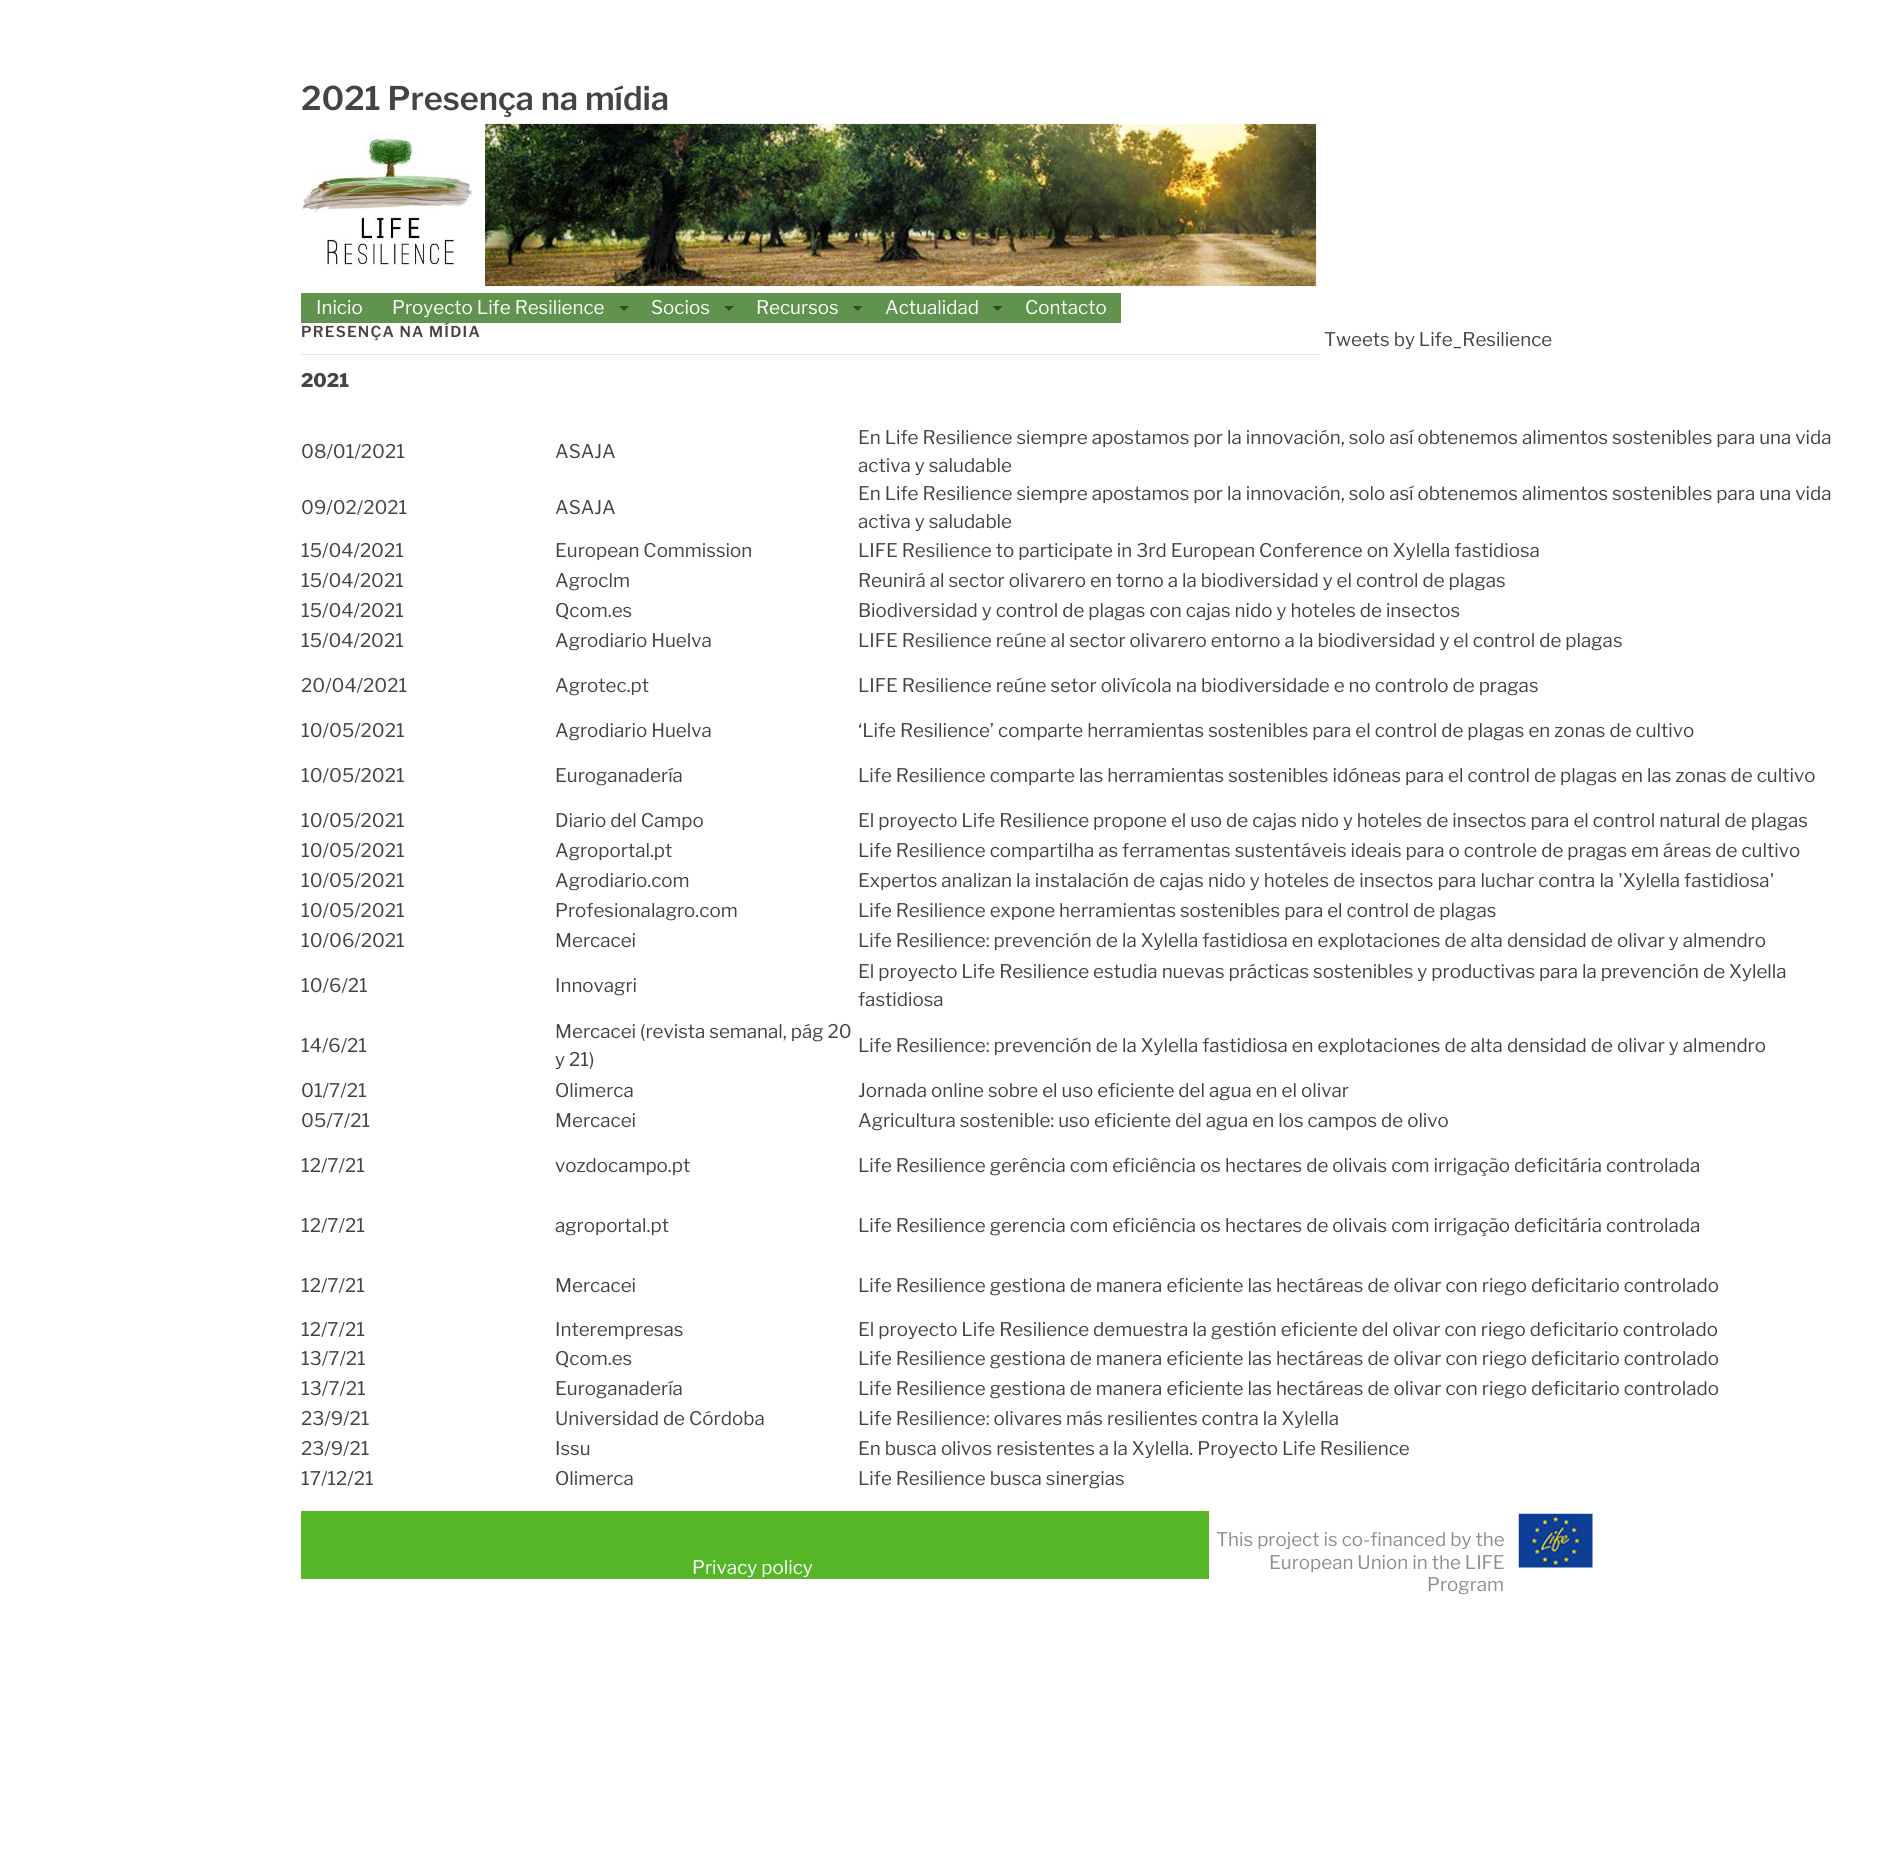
#include <cairo.h>
#include <math.h>
#include <stddef.h>


static void spaced_text(cairo_t *cr, double x, double y, const char *s, double letter, double word) {
    cairo_move_to(cr, x, y);
    while (*s) {
        char ch[5] = {0};
        int n = 0;
        do ch[n++] = *s++; while ((*s & 0xC0) == 0x80);
        cairo_show_text(cr, ch);
        cairo_rel_move_to(cr, letter + word * (*ch == ' '), 0);
    }
}

static void picture(cairo_t *cr, const char *path, double x, double y, double w, double h) {
    cairo_surface_t *image = cairo_image_surface_create_from_png(path);
    cairo_save(cr);
    cairo_set_source_surface(cr, image, x, y);
    cairo_rectangle(cr, x, y, w, h);
    cairo_fill(cr);
    cairo_restore(cr);
    cairo_surface_destroy(image);
}

int main(void) {
    cairo_surface_t *surface = cairo_image_surface_create(CAIRO_FORMAT_RGB24, 1901, 1859);
    cairo_t *cr = cairo_create(surface);
    cairo_font_options_t *options = cairo_font_options_create();
    cairo_font_options_set_hint_metrics(options, CAIRO_HINT_METRICS_OFF);
    cairo_font_options_set_hint_style(options, CAIRO_HINT_STYLE_NONE);
    cairo_set_font_options(cr, options);
    cairo_set_miter_limit(cr, 4);
    cairo_set_source_rgb(cr, 1, 1, 1);
    cairo_paint(cr);
    cairo_select_font_face(cr, "Libre Franklin SemiBold", CAIRO_FONT_SLANT_NORMAL, CAIRO_FONT_WEIGHT_NORMAL);
    cairo_set_font_size(cr, 32.5);
    cairo_set_source_rgb(cr, 0.267, 0.267, 0.267);
    cairo_move_to(cr, 301, 110);
    cairo_show_text(cr, "2021 Presença na mídia");
    picture(cr, "img1.png", 301, 136, 172, 130);
    picture(cr, "img2.png", 485, 123, 832, 164);
    cairo_set_font_size(cr, 15);
    spaced_text(cr, 301, 337, "PRESENÇA NA MÍDIA", 1.25, 0);
    cairo_set_source_rgb(cr, 0.376, 0.576, 0.306);
    cairo_rectangle(cr, 301, 293, 820, 30);
    cairo_fill(cr);
    cairo_select_font_face(cr, "Libre Franklin", CAIRO_FONT_SLANT_NORMAL, CAIRO_FONT_WEIGHT_NORMAL);
    cairo_set_font_size(cr, 18.75);
    cairo_set_source_rgb(cr, 1, 1, 1);
    cairo_move_to(cr, 316, 314);
    cairo_show_text(cr, "Inicio");
    cairo_move_to(cr, 392, 314);
    cairo_show_text(cr, "Proyecto Life Resilience");
    cairo_set_source_rgb(cr, 0.188, 0.29, 0.153);
    cairo_new_path(cr);
    cairo_move_to(cr, 619, 306);
    cairo_line_to(cr, 629, 306);
    cairo_line_to(cr, 624, 311);
    cairo_close_path(cr);
    cairo_fill(cr);
    cairo_set_source_rgb(cr, 1, 1, 1);
    cairo_move_to(cr, 651, 314);
    cairo_show_text(cr, "Socios");
    cairo_set_source_rgb(cr, 0.188, 0.29, 0.153);
    cairo_new_path(cr);
    cairo_move_to(cr, 724, 306);
    cairo_line_to(cr, 734, 306);
    cairo_line_to(cr, 729, 311);
    cairo_close_path(cr);
    cairo_fill(cr);
    cairo_set_source_rgb(cr, 1, 1, 1);
    cairo_move_to(cr, 756, 314);
    cairo_show_text(cr, "Recursos");
    cairo_set_source_rgb(cr, 0.188, 0.29, 0.153);
    cairo_new_path(cr);
    cairo_move_to(cr, 852.5, 306);
    cairo_line_to(cr, 862.5, 306);
    cairo_line_to(cr, 857.5, 311);
    cairo_close_path(cr);
    cairo_fill(cr);
    cairo_set_source_rgb(cr, 1, 1, 1);
    cairo_move_to(cr, 885, 314);
    cairo_show_text(cr, "Actualidad");
    cairo_set_source_rgb(cr, 0.188, 0.29, 0.153);
    cairo_new_path(cr);
    cairo_move_to(cr, 992.5, 306);
    cairo_line_to(cr, 1002.5, 306);
    cairo_line_to(cr, 997.5, 311);
    cairo_close_path(cr);
    cairo_fill(cr);
    cairo_set_source_rgb(cr, 1, 1, 1);
    cairo_move_to(cr, 1025, 314);
    cairo_show_text(cr, "Contacto");
    cairo_set_source_rgb(cr, 0.898, 0.898, 0.898);
    cairo_rectangle(cr, 301, 354, 1018, 1);
    cairo_fill(cr);
    cairo_select_font_face(cr, "Libre Franklin ExtraBold", CAIRO_FONT_SLANT_NORMAL, CAIRO_FONT_WEIGHT_NORMAL);
    cairo_set_source_rgb(cr, 0.267, 0.267, 0.267);
    cairo_move_to(cr, 301, 387);
    cairo_show_text(cr, "2021");
    cairo_select_font_face(cr, "Libre Franklin", CAIRO_FONT_SLANT_NORMAL, CAIRO_FONT_WEIGHT_NORMAL);
    cairo_move_to(cr, 301, 458);
    cairo_show_text(cr, "08/01/2021");
    cairo_move_to(cr, 555, 458);
    cairo_show_text(cr, "ASAJA");
    cairo_move_to(cr, 858, 444);
    cairo_show_text(cr, "En Life Resilience siempre apostamos por la innovación, solo así obtenemos alimentos sostenibles para una vida");
    cairo_move_to(cr, 858, 472);
    cairo_show_text(cr, "activa y saludable");
    cairo_move_to(cr, 301, 514);
    cairo_show_text(cr, "09/02/2021");
    cairo_move_to(cr, 555, 514);
    cairo_show_text(cr, "ASAJA");
    cairo_move_to(cr, 858, 500);
    cairo_show_text(cr, "En Life Resilience siempre apostamos por la innovación, solo así obtenemos alimentos sostenibles para una vida");
    cairo_move_to(cr, 858, 528);
    cairo_show_text(cr, "activa y saludable");
    cairo_move_to(cr, 301, 557);
    cairo_show_text(cr, "15/04/2021");
    cairo_move_to(cr, 555, 557);
    cairo_show_text(cr, "European Commission");
    cairo_move_to(cr, 858, 557);
    cairo_show_text(cr, "LIFE Resilience to participate in 3rd European Conference on Xylella fastidiosa");
    cairo_move_to(cr, 301, 587);
    cairo_show_text(cr, "15/04/2021");
    cairo_move_to(cr, 555, 587);
    cairo_show_text(cr, "Agroclm");
    cairo_move_to(cr, 858, 587);
    cairo_show_text(cr, "Reunirá al sector olivarero en torno a la biodiversidad y el control de plagas");
    cairo_move_to(cr, 301, 617);
    cairo_show_text(cr, "15/04/2021");
    cairo_move_to(cr, 555, 617);
    cairo_show_text(cr, "Qcom.es");
    cairo_move_to(cr, 858, 617);
    cairo_show_text(cr, "Biodiversidad y control de plagas con cajas nido y hoteles de insectos");
    cairo_move_to(cr, 301, 647);
    cairo_show_text(cr, "15/04/2021");
    cairo_move_to(cr, 555, 647);
    cairo_show_text(cr, "Agrodiario Huelva");
    cairo_move_to(cr, 858, 647);
    cairo_show_text(cr, "LIFE Resilience reúne al sector olivarero entorno a la biodiversidad y el control de plagas");
    cairo_move_to(cr, 301, 692);
    cairo_show_text(cr, "20/04/2021");
    cairo_move_to(cr, 555, 692);
    cairo_show_text(cr, "Agrotec.pt");
    cairo_move_to(cr, 858, 692);
    cairo_show_text(cr, "LIFE Resilience reúne setor olivícola na biodiversidade e no controlo de pragas");
    cairo_move_to(cr, 301, 737);
    cairo_show_text(cr, "10/05/2021");
    cairo_move_to(cr, 555, 737);
    cairo_show_text(cr, "Agrodiario Huelva");
    cairo_move_to(cr, 858, 737);
    cairo_show_text(cr, "‘Life Resilience’ comparte herramientas sostenibles para el control de plagas en zonas de cultivo");
    cairo_move_to(cr, 301, 782);
    cairo_show_text(cr, "10/05/2021");
    cairo_move_to(cr, 555, 782);
    cairo_show_text(cr, "Euroganadería");
    cairo_move_to(cr, 858, 782);
    cairo_show_text(cr, "Life Resilience comparte las herramientas sostenibles idóneas para el control de plagas en las zonas de cultivo");
    cairo_move_to(cr, 301, 827);
    cairo_show_text(cr, "10/05/2021");
    cairo_move_to(cr, 555, 827);
    cairo_show_text(cr, "Diario del Campo");
    cairo_move_to(cr, 858, 827);
    cairo_show_text(cr, "El proyecto Life Resilience propone el uso de cajas nido y hoteles de insectos para el control natural de plagas");
    cairo_move_to(cr, 301, 857);
    cairo_show_text(cr, "10/05/2021");
    cairo_move_to(cr, 555, 857);
    cairo_show_text(cr, "Agroportal.pt");
    cairo_move_to(cr, 858, 857);
    cairo_show_text(cr, "Life Resilience compartilha as ferramentas sustentáveis ideais para o controle de pragas em áreas de cultivo");
    cairo_move_to(cr, 301, 887);
    cairo_show_text(cr, "10/05/2021");
    cairo_move_to(cr, 555, 887);
    cairo_show_text(cr, "Agrodiario.com");
    cairo_move_to(cr, 858, 887);
    cairo_show_text(cr, "Expertos analizan la instalación de cajas nido y hoteles de insectos para luchar contra la 'Xylella fastidiosa'");
    cairo_move_to(cr, 301, 917);
    cairo_show_text(cr, "10/05/2021");
    cairo_move_to(cr, 555, 917);
    cairo_show_text(cr, "Profesionalagro.com");
    cairo_move_to(cr, 858, 917);
    cairo_show_text(cr, "Life Resilience expone herramientas sostenibles para el control de plagas");
    cairo_move_to(cr, 301, 947);
    cairo_show_text(cr, "10/06/2021");
    cairo_move_to(cr, 555, 947);
    cairo_show_text(cr, "Mercacei");
    cairo_move_to(cr, 858, 947);
    cairo_show_text(cr, "Life Resilience: prevención de la Xylella fastidiosa en explotaciones de alta densidad de olivar y almendro");
    cairo_move_to(cr, 301, 992);
    cairo_show_text(cr, "10/6/21");
    cairo_move_to(cr, 555, 992);
    cairo_show_text(cr, "Innovagri");
    cairo_move_to(cr, 858, 978);
    cairo_show_text(cr, "El proyecto Life Resilience estudia nuevas prácticas sostenibles y productivas para la prevención de Xylella");
    cairo_move_to(cr, 858, 1006);
    cairo_show_text(cr, "fastidiosa");
    cairo_move_to(cr, 301, 1052);
    cairo_show_text(cr, "14/6/21");
    cairo_move_to(cr, 555, 1038);
    cairo_show_text(cr, "Mercacei (revista semanal, pág 20");
    cairo_move_to(cr, 555, 1066);
    cairo_show_text(cr, "y 21)");
    cairo_move_to(cr, 858, 1052);
    cairo_show_text(cr, "Life Resilience: prevención de la Xylella fastidiosa en explotaciones de alta densidad de olivar y almendro");
    cairo_move_to(cr, 301, 1097);
    cairo_show_text(cr, "01/7/21");
    cairo_move_to(cr, 555, 1097);
    cairo_show_text(cr, "Olimerca");
    cairo_move_to(cr, 858, 1097);
    cairo_show_text(cr, "Jornada online sobre el uso eficiente del agua en el olivar");
    cairo_move_to(cr, 301, 1127);
    cairo_show_text(cr, "05/7/21");
    cairo_move_to(cr, 555, 1127);
    cairo_show_text(cr, "Mercacei");
    cairo_move_to(cr, 858, 1127);
    cairo_show_text(cr, "Agricultura sostenible: uso eficiente del agua en los campos de olivo");
    cairo_move_to(cr, 301, 1172);
    cairo_show_text(cr, "12/7/21");
    cairo_move_to(cr, 555, 1172);
    cairo_show_text(cr, "vozdocampo.pt");
    cairo_move_to(cr, 858, 1172);
    cairo_show_text(cr, "Life Resilience gerência com eficiência os hectares de olivais com irrigação deficitária controlada");
    cairo_move_to(cr, 301, 1232);
    cairo_show_text(cr, "12/7/21");
    cairo_move_to(cr, 555, 1232);
    cairo_show_text(cr, "agroportal.pt");
    cairo_move_to(cr, 858, 1232);
    cairo_show_text(cr, "Life Resilience gerencia com eficiência os hectares de olivais com irrigação deficitária controlada");
    cairo_move_to(cr, 301, 1292);
    cairo_show_text(cr, "12/7/21");
    cairo_move_to(cr, 555, 1292);
    cairo_show_text(cr, "Mercacei");
    cairo_move_to(cr, 858, 1292);
    cairo_show_text(cr, "Life Resilience gestiona de manera eficiente las hectáreas de olivar con riego deficitario controlado");
    cairo_move_to(cr, 301, 1336);
    cairo_show_text(cr, "12/7/21");
    cairo_move_to(cr, 555, 1336);
    cairo_show_text(cr, "Interempresas");
    cairo_move_to(cr, 858, 1336);
    cairo_show_text(cr, "El proyecto Life Resilience demuestra la gestión eficiente del olivar con riego deficitario controlado");
    cairo_move_to(cr, 301, 1365);
    cairo_show_text(cr, "13/7/21");
    cairo_move_to(cr, 555, 1365);
    cairo_show_text(cr, "Qcom.es");
    cairo_move_to(cr, 858, 1365);
    cairo_show_text(cr, "Life Resilience gestiona de manera eficiente las hectáreas de olivar con riego deficitario controlado");
    cairo_move_to(cr, 301, 1395);
    cairo_show_text(cr, "13/7/21");
    cairo_move_to(cr, 555, 1395);
    cairo_show_text(cr, "Euroganadería");
    cairo_move_to(cr, 858, 1395);
    cairo_show_text(cr, "Life Resilience gestiona de manera eficiente las hectáreas de olivar con riego deficitario controlado");
    cairo_move_to(cr, 301, 1425);
    cairo_show_text(cr, "23/9/21");
    cairo_move_to(cr, 555, 1425);
    cairo_show_text(cr, "Universidad de Córdoba");
    cairo_move_to(cr, 858, 1425);
    cairo_show_text(cr, "Life Resilience: olivares más resilientes contra la Xylella");
    cairo_move_to(cr, 301, 1455);
    cairo_show_text(cr, "23/9/21");
    cairo_move_to(cr, 555, 1455);
    cairo_show_text(cr, "Issu");
    cairo_move_to(cr, 858, 1455);
    cairo_show_text(cr, "En busca olivos resistentes a la Xylella. Proyecto Life Resilience");
    cairo_move_to(cr, 301, 1485);
    cairo_show_text(cr, "17/12/21");
    cairo_move_to(cr, 555, 1485);
    cairo_show_text(cr, "Olimerca");
    cairo_move_to(cr, 858, 1485);
    cairo_show_text(cr, "Life Resilience busca sinergias");
    cairo_move_to(cr, 1324, 346);
    cairo_show_text(cr, "Tweets by Life_Resilience");
    cairo_set_source_rgb(cr, 0.333, 0.718, 0.157);
    cairo_rectangle(cr, 301, 1511, 908, 68);
    cairo_fill(cr);
    cairo_set_source_rgb(cr, 1, 1, 1);
    cairo_move_to(cr, 692, 1574);
    cairo_show_text(cr, "Privacy policy");
    cairo_set_source_rgb(cr, 0.553, 0.561, 0.553);
    cairo_move_to(cr, 1216, 1546);
    cairo_show_text(cr, "This project is co-financed by the");
    cairo_move_to(cr, 1269, 1569);
    cairo_show_text(cr, "European Union in the LIFE");
    cairo_move_to(cr, 1427, 1591);
    cairo_show_text(cr, "Program");
    picture(cr, "img3.png", 1518, 1513, 75, 55);
    cairo_surface_write_to_png(surface, "page.png");
    cairo_font_options_destroy(options);
    cairo_destroy(cr);
    cairo_surface_destroy(surface);
    return 0;
}
